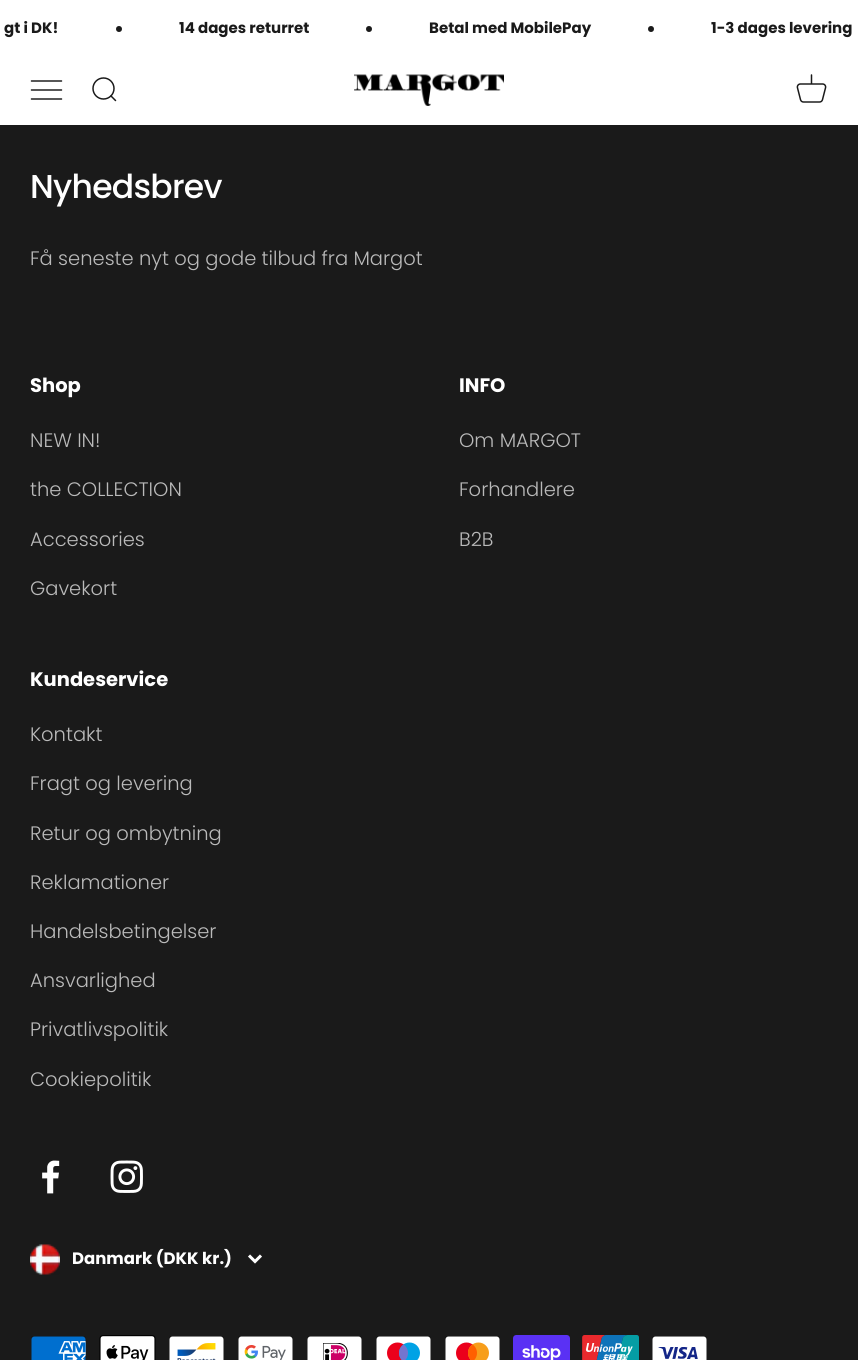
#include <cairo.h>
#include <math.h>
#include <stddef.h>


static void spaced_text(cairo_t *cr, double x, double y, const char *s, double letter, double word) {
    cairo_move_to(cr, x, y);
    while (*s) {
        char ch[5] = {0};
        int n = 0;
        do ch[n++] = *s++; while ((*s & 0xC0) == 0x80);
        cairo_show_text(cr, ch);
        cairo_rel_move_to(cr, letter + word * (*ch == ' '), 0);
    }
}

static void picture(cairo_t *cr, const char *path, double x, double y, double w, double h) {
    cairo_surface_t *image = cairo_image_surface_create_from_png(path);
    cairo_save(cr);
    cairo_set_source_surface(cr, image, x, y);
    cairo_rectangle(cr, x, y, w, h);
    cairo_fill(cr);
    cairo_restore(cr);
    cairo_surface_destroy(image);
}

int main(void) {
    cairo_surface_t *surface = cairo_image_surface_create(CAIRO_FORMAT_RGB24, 858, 1360);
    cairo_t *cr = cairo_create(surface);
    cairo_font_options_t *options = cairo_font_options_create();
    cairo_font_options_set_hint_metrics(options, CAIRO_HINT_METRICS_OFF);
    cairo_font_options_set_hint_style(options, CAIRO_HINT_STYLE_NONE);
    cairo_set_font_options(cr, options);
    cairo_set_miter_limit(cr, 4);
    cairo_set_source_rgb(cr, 1, 1, 1);
    cairo_paint(cr);
    cairo_select_font_face(cr, "Poppins", CAIRO_FONT_SLANT_NORMAL, CAIRO_FONT_WEIGHT_BOLD);
    cairo_set_font_size(cr, 15);
    cairo_set_source_rgb(cr, 0.102, 0.102, 0.102);
    cairo_move_to(cr, 4, 33);
    cairo_show_text(cr, "gt i DK!");
    cairo_new_path(cr);
    cairo_arc(cr, 119, 29, 3, 0, 2 * M_PI);
    cairo_fill(cr);
    cairo_move_to(cr, 179, 33);
    cairo_show_text(cr, "14 dages returret");
    cairo_new_path(cr);
    cairo_arc(cr, 369, 29, 3, 0, 2 * M_PI);
    cairo_fill(cr);
    cairo_move_to(cr, 429, 33);
    cairo_show_text(cr, "Betal med MobilePay");
    cairo_new_path(cr);
    cairo_arc(cr, 651, 29, 3, 0, 2 * M_PI);
    cairo_fill(cr);
    cairo_move_to(cr, 711, 33);
    cairo_show_text(cr, "1-3 dages levering");
    cairo_new_path(cr);
    cairo_move_to(cr, 31.5, 81);
    cairo_line_to(cr, 61.5, 81);
    cairo_move_to(cr, 31.5, 90);
    cairo_line_to(cr, 61.5, 90);
    cairo_move_to(cr, 31.5, 99);
    cairo_line_to(cr, 61.5, 99);
    cairo_set_line_width(cr, 1.5);
    cairo_set_line_cap(cr, CAIRO_LINE_CAP_ROUND);
    cairo_stroke(cr);
    cairo_arc(cr, 103.5, 88.5, 10.5, 0, 2 * M_PI);
    cairo_set_line_cap(cr, CAIRO_LINE_CAP_BUTT);
    cairo_stroke(cr);
    cairo_new_path(cr);
    cairo_move_to(cr, 111, 96);
    cairo_line_to(cr, 115.5, 100.5);
    cairo_set_line_cap(cr, CAIRO_LINE_CAP_ROUND);
    cairo_set_line_join(cr, CAIRO_LINE_JOIN_ROUND);
    cairo_stroke(cr);
    picture(cr, "img1.png", 354, 74, 150, 32);
    picture(cr, "img2.png", 796, 74, 31, 29);
    cairo_rectangle(cr, 0, 125, 858, 1235);
    cairo_fill(cr);
    cairo_select_font_face(cr, "Poppins Medium", CAIRO_FONT_SLANT_NORMAL, CAIRO_FONT_WEIGHT_NORMAL);
    cairo_set_font_size(cr, 33);
    cairo_set_source_rgb(cr, 1, 1, 1);
    spaced_text(cr, 30, 198, "Nyhedsbrev", -0.75, 0);
    cairo_select_font_face(cr, "Poppins Light", CAIRO_FONT_SLANT_NORMAL, CAIRO_FONT_WEIGHT_NORMAL);
    cairo_set_font_size(cr, 19.5);
    cairo_set_source_rgb(cr, 0.729, 0.729, 0.729);
    cairo_move_to(cr, 30, 265);
    cairo_show_text(cr, "Få seneste nyt og gode tilbud fra Margot");
    cairo_select_font_face(cr, "Poppins", CAIRO_FONT_SLANT_NORMAL, CAIRO_FONT_WEIGHT_BOLD);
    cairo_set_source_rgb(cr, 1, 1, 1);
    cairo_move_to(cr, 30, 392);
    cairo_show_text(cr, "Shop");
    cairo_select_font_face(cr, "Poppins Light", CAIRO_FONT_SLANT_NORMAL, CAIRO_FONT_WEIGHT_NORMAL);
    cairo_set_source_rgb(cr, 0.729, 0.729, 0.729);
    cairo_move_to(cr, 30, 447);
    cairo_show_text(cr, "NEW IN!");
    cairo_move_to(cr, 30, 496);
    cairo_show_text(cr, "the COLLECTION");
    cairo_move_to(cr, 30, 546);
    cairo_show_text(cr, "Accessories");
    cairo_move_to(cr, 30, 595);
    cairo_show_text(cr, "Gavekort");
    cairo_select_font_face(cr, "Poppins", CAIRO_FONT_SLANT_NORMAL, CAIRO_FONT_WEIGHT_BOLD);
    cairo_set_source_rgb(cr, 1, 1, 1);
    cairo_move_to(cr, 459, 392);
    cairo_show_text(cr, "INFO");
    cairo_select_font_face(cr, "Poppins Light", CAIRO_FONT_SLANT_NORMAL, CAIRO_FONT_WEIGHT_NORMAL);
    cairo_set_source_rgb(cr, 0.729, 0.729, 0.729);
    cairo_move_to(cr, 459, 447);
    cairo_show_text(cr, "Om MARGOT");
    cairo_move_to(cr, 459, 496);
    cairo_show_text(cr, "Forhandlere");
    cairo_move_to(cr, 459, 546);
    cairo_show_text(cr, "B2B");
    cairo_select_font_face(cr, "Poppins", CAIRO_FONT_SLANT_NORMAL, CAIRO_FONT_WEIGHT_BOLD);
    cairo_set_source_rgb(cr, 1, 1, 1);
    cairo_move_to(cr, 30, 686);
    cairo_show_text(cr, "Kundeservice");
    cairo_select_font_face(cr, "Poppins Light", CAIRO_FONT_SLANT_NORMAL, CAIRO_FONT_WEIGHT_NORMAL);
    cairo_set_source_rgb(cr, 0.729, 0.729, 0.729);
    cairo_move_to(cr, 30, 741);
    cairo_show_text(cr, "Kontakt");
    cairo_move_to(cr, 30, 790);
    cairo_show_text(cr, "Fragt og levering");
    cairo_move_to(cr, 30, 840);
    cairo_show_text(cr, "Retur og ombytning");
    cairo_move_to(cr, 30, 889);
    cairo_show_text(cr, "Reklamationer");
    cairo_move_to(cr, 30, 938);
    cairo_show_text(cr, "Handelsbetingelser");
    cairo_move_to(cr, 30, 987);
    cairo_show_text(cr, "Ansvarlighed");
    cairo_move_to(cr, 30, 1036);
    cairo_show_text(cr, "Privatlivspolitik");
    cairo_move_to(cr, 30, 1086);
    cairo_show_text(cr, "Cookiepolitik");
    picture(cr, "img3.png", 42, 1160, 18, 34);
    picture(cr, "img4.png", 110, 1160, 33, 33);
    picture(cr, "img5.png", 30, 1244, 30, 31);
    cairo_select_font_face(cr, "Poppins", CAIRO_FONT_SLANT_NORMAL, CAIRO_FONT_WEIGHT_BOLD);
    cairo_set_font_size(cr, 16.5);
    cairo_set_source_rgb(cr, 1, 1, 1);
    cairo_move_to(cr, 72, 1264);
    cairo_show_text(cr, "Danmark (DKK kr.)");
    cairo_new_path(cr);
    cairo_move_to(cr, 249, 1255.5);
    cairo_line_to(cr, 255, 1261.5);
    cairo_line_to(cr, 261, 1255.5);
    cairo_set_line_width(cr, 3);
    cairo_set_line_cap(cr, CAIRO_LINE_CAP_BUTT);
    cairo_set_line_join(cr, CAIRO_LINE_JOIN_MITER);
    cairo_stroke(cr);
    picture(cr, "img6.png", 31, 1336, 55, 24);
    picture(cr, "img7.png", 99, 1335, 57, 25);
    picture(cr, "img8.png", 169, 1336, 55, 24);
    picture(cr, "img9.png", 238, 1336, 55, 24);
    picture(cr, "img10.png", 307, 1336, 55, 24);
    picture(cr, "img11.png", 376, 1336, 55, 24);
    picture(cr, "img12.png", 445, 1336, 55, 24);
    picture(cr, "img13.png", 513, 1335, 57, 25);
    picture(cr, "img14.png", 582, 1335, 57, 25);
    picture(cr, "img15.png", 652, 1336, 55, 24);
    cairo_surface_write_to_png(surface, "page.png");
    cairo_font_options_destroy(options);
    cairo_destroy(cr);
    cairo_surface_destroy(surface);
    return 0;
}
